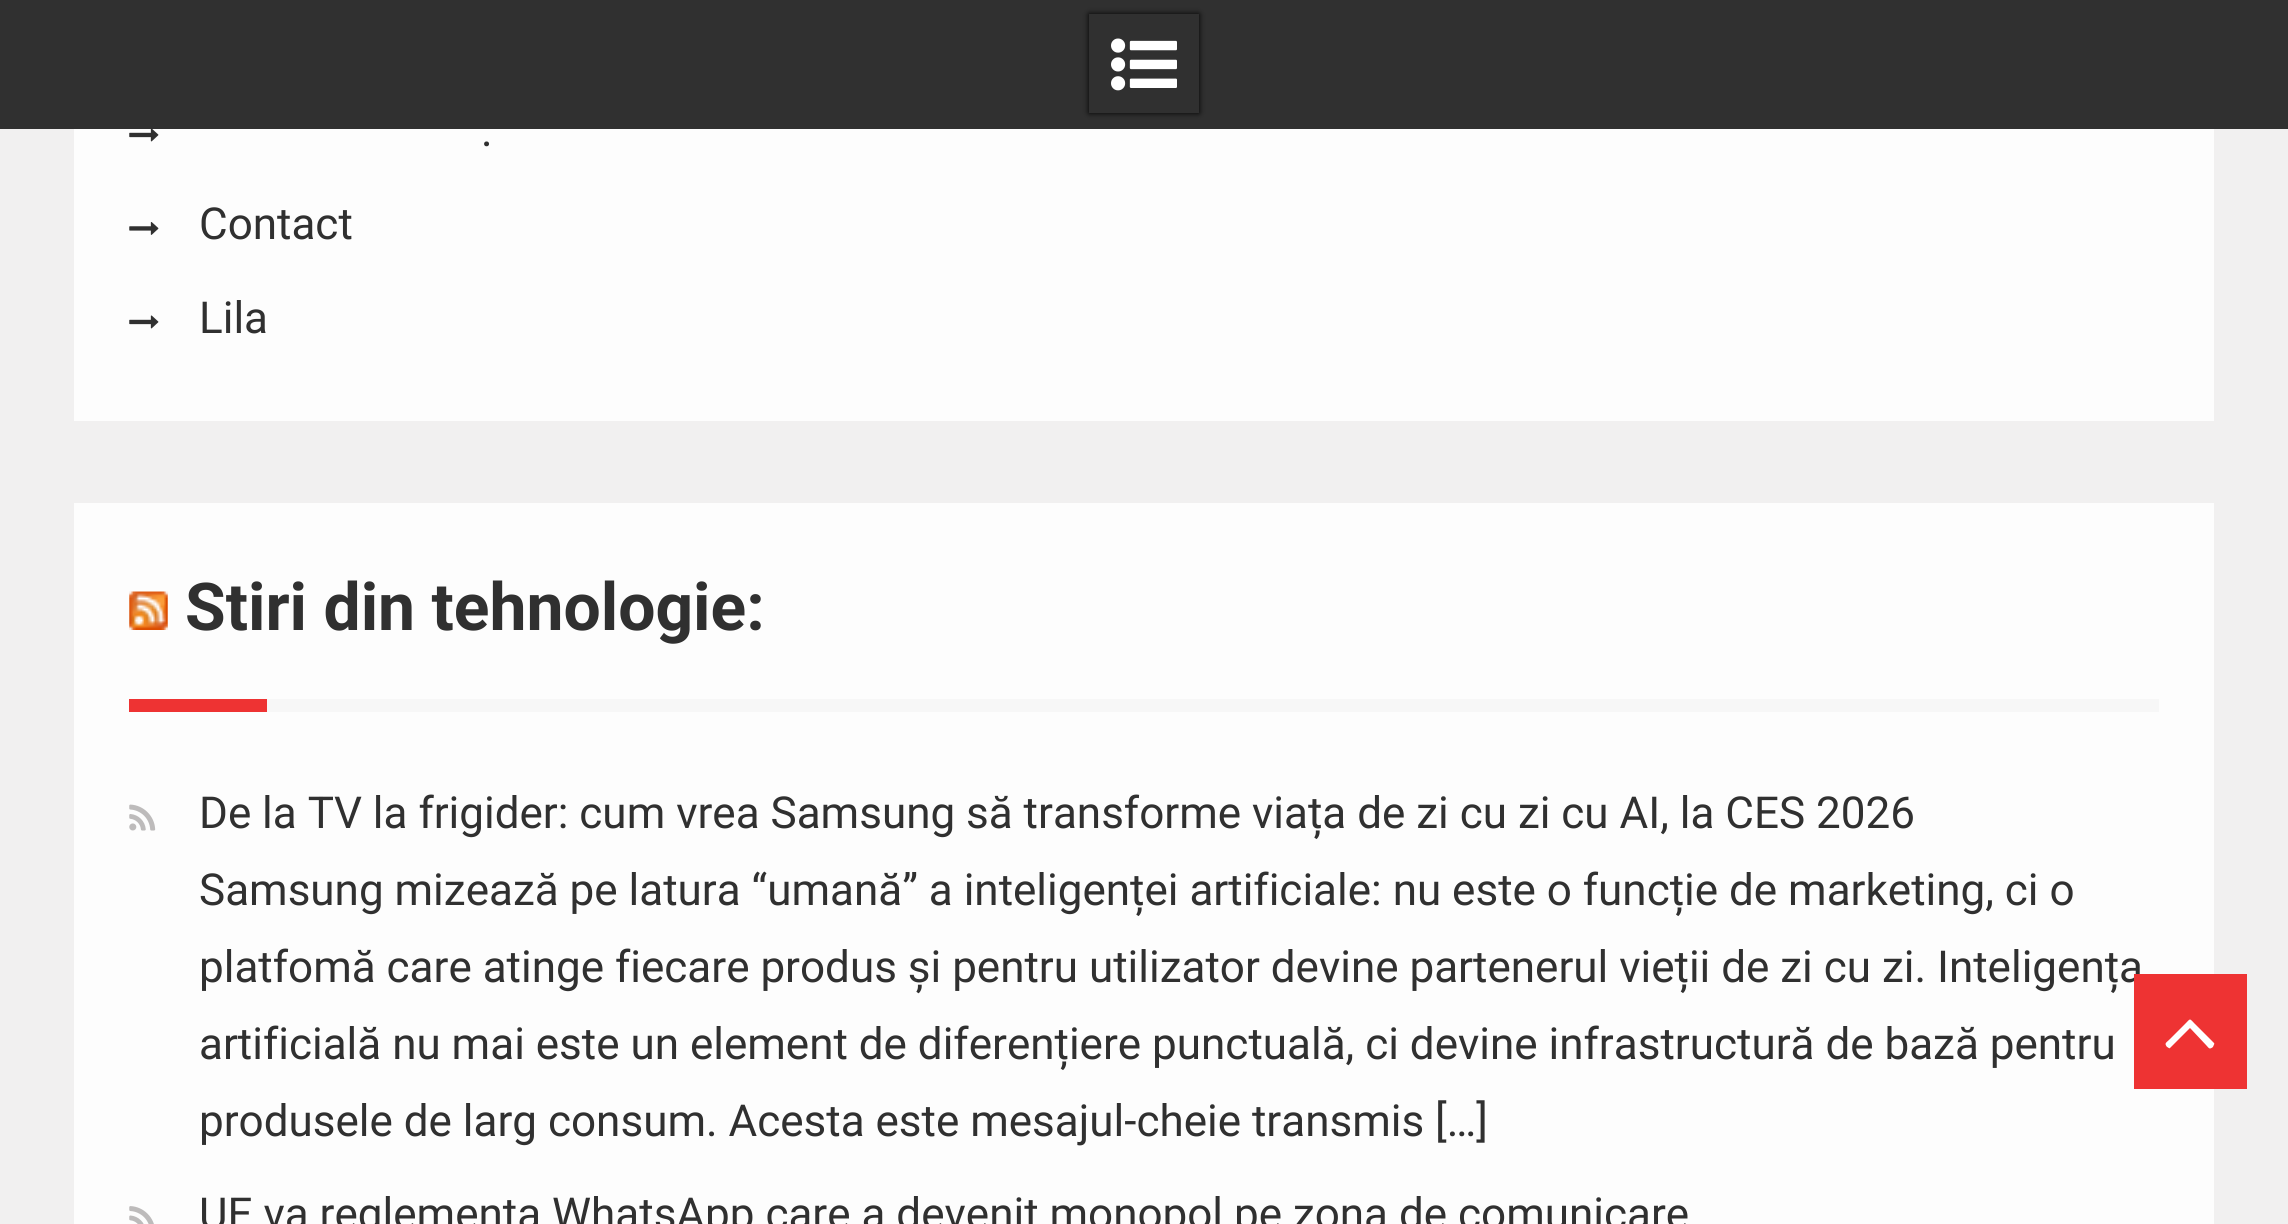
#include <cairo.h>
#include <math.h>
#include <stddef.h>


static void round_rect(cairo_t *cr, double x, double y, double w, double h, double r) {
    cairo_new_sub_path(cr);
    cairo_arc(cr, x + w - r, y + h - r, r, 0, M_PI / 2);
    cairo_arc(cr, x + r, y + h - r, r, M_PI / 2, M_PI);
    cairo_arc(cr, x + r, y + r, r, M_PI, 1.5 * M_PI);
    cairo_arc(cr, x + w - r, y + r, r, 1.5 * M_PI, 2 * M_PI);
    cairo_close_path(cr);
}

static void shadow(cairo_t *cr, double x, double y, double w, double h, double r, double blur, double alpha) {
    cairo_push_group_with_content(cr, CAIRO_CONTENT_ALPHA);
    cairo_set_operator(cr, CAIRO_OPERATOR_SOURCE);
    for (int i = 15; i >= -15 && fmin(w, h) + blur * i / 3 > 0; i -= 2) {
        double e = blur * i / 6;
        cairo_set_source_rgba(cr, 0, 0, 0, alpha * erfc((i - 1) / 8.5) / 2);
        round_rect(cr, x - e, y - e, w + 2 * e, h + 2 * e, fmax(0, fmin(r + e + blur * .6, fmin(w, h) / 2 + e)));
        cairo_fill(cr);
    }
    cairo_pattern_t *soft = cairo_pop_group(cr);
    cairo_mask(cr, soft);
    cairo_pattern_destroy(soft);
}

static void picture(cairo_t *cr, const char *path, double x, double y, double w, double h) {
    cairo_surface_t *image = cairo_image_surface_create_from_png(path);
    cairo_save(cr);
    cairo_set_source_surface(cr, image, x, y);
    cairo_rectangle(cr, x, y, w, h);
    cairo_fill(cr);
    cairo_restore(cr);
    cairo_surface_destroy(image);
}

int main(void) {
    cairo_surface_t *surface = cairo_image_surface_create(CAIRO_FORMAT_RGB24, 2288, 1224);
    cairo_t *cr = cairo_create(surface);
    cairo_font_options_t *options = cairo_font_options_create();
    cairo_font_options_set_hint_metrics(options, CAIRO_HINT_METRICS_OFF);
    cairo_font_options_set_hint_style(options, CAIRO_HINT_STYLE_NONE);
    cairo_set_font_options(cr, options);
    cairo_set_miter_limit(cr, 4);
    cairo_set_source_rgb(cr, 0.945, 0.941, 0.941);
    cairo_paint(cr);
    cairo_set_source_rgb(cr, 0.188, 0.188, 0.188);
    cairo_rectangle(cr, 0, 0, 2288, 129);
    cairo_fill(cr);
    cairo_save(cr);
    cairo_set_fill_rule(cr, CAIRO_FILL_RULE_EVEN_ODD);
    cairo_new_path(cr);
    cairo_move_to(cr, 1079, 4);
    cairo_line_to(cr, 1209, 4);
    cairo_line_to(cr, 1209, 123);
    cairo_line_to(cr, 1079, 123);
    cairo_close_path(cr);
    cairo_move_to(cr, 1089, 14);
    cairo_line_to(cr, 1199, 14);
    cairo_line_to(cr, 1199, 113);
    cairo_line_to(cr, 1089, 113);
    cairo_close_path(cr);
    cairo_clip(cr);
    cairo_set_source_rgb(cr, 0, 0, 0);
    shadow(cr, 1089, 14, 110, 99, 0, 3, 1);
    cairo_restore(cr);
    picture(cr, "img1.png", 1111, 38, 66, 53);
    cairo_set_source_rgb(cr, 0.992, 0.992, 0.992);
    cairo_rectangle(cr, 74, 129, 2140, 292);
    cairo_fill(cr);
    picture(cr, "img2.png", 129, 129, 30, 13);
    cairo_select_font_face(cr, "Roboto", CAIRO_FONT_SLANT_NORMAL, CAIRO_FONT_WEIGHT_NORMAL);
    cairo_set_font_size(cr, 44);
    cairo_set_source_rgb(cr, 0.188, 0.188, 0.188);
    cairo_move_to(cr, 481, 146);
    cairo_show_text(cr, ".");
    picture(cr, "img3.png", 129, 222, 30, 13);
    cairo_move_to(cr, 199, 239);
    cairo_show_text(cr, "Contact");
    picture(cr, "img4.png", 129, 315, 30, 14);
    cairo_move_to(cr, 199, 333);
    cairo_show_text(cr, "Lila");
    cairo_set_source_rgb(cr, 0.992, 0.992, 0.992);
    cairo_rectangle(cr, 74, 503, 2140, 721);
    cairo_fill(cr);
    cairo_set_source_rgb(cr, 0.965, 0.965, 0.965);
    cairo_rectangle(cr, 267, 699, 1892, 13);
    cairo_fill(cr);
    picture(cr, "img5.png", 129, 591, 39, 39);
    cairo_select_font_face(cr, "Roboto", CAIRO_FONT_SLANT_NORMAL, CAIRO_FONT_WEIGHT_BOLD);
    cairo_set_font_size(cr, 66);
    cairo_set_source_rgb(cr, 0.188, 0.188, 0.188);
    cairo_move_to(cr, 185, 630);
    cairo_show_text(cr, "Stiri din tehnologie:");
    cairo_set_source_rgb(cr, 0.933, 0.2, 0.2);
    cairo_rectangle(cr, 129, 699, 138, 13);
    cairo_fill(cr);
    picture(cr, "img6.png", 129, 804, 27, 27);
    cairo_select_font_face(cr, "Roboto", CAIRO_FONT_SLANT_NORMAL, CAIRO_FONT_WEIGHT_NORMAL);
    cairo_set_font_size(cr, 44);
    cairo_set_source_rgb(cr, 0.188, 0.188, 0.188);
    cairo_move_to(cr, 199, 828);
    cairo_show_text(cr, "De la TV la frigider: cum vrea Samsung să transforme viața de zi cu zi cu AI, la CES 2026");
    cairo_move_to(cr, 199, 905);
    cairo_show_text(cr, "Samsung mizează pe latura “umană” a inteligenței artificiale: nu este o funcție de marketing, ci o");
    cairo_move_to(cr, 199, 982);
    cairo_show_text(cr, "platfomă care atinge fiecare produs și pentru utilizator devine partenerul vieții de zi cu zi. Inteligența");
    cairo_move_to(cr, 199, 1059);
    cairo_show_text(cr, "artificială nu mai este un element de diferențiere punctuală, ci devine infrastructură de bază pentru");
    cairo_move_to(cr, 199, 1136);
    cairo_show_text(cr, "produsele de larg consum. Acesta este mesajul-cheie transmis […]");
    picture(cr, "img7.png", 129, 1206, 25, 18);
    cairo_move_to(cr, 199, 1229);
    cairo_show_text(cr, "UE va reglementa WhatsApp care a devenit monopol pe zona de comunicare");
    cairo_set_source_rgb(cr, 0.933, 0.2, 0.2);
    cairo_rectangle(cr, 2134, 974, 113, 115);
    cairo_fill(cr);
    cairo_set_source_rgb(cr, 1, 1, 1);
    cairo_new_path(cr);
    cairo_move_to(cr, 2214, 1043);
    cairo_curve_to(cr, 2215, 1044, 2213, 1046, 2213, 1047);
    cairo_curve_to(cr, 2209, 1050, 2209, 1048, 2206, 1045);
    cairo_line_to(cr, 2190, 1028);
    cairo_line_to(cr, 2170, 1048);
    cairo_curve_to(cr, 2169, 1049, 2168, 1047, 2167, 1047);
    cairo_curve_to(cr, 2164, 1043, 2166, 1043, 2170, 1039);
    cairo_line_to(cr, 2185, 1024);
    cairo_curve_to(cr, 2191, 1018, 2189, 1018, 2195, 1024);
    cairo_close_path(cr);
    cairo_fill(cr);
    cairo_surface_write_to_png(surface, "page.png");
    cairo_font_options_destroy(options);
    cairo_destroy(cr);
    cairo_surface_destroy(surface);
    return 0;
}
